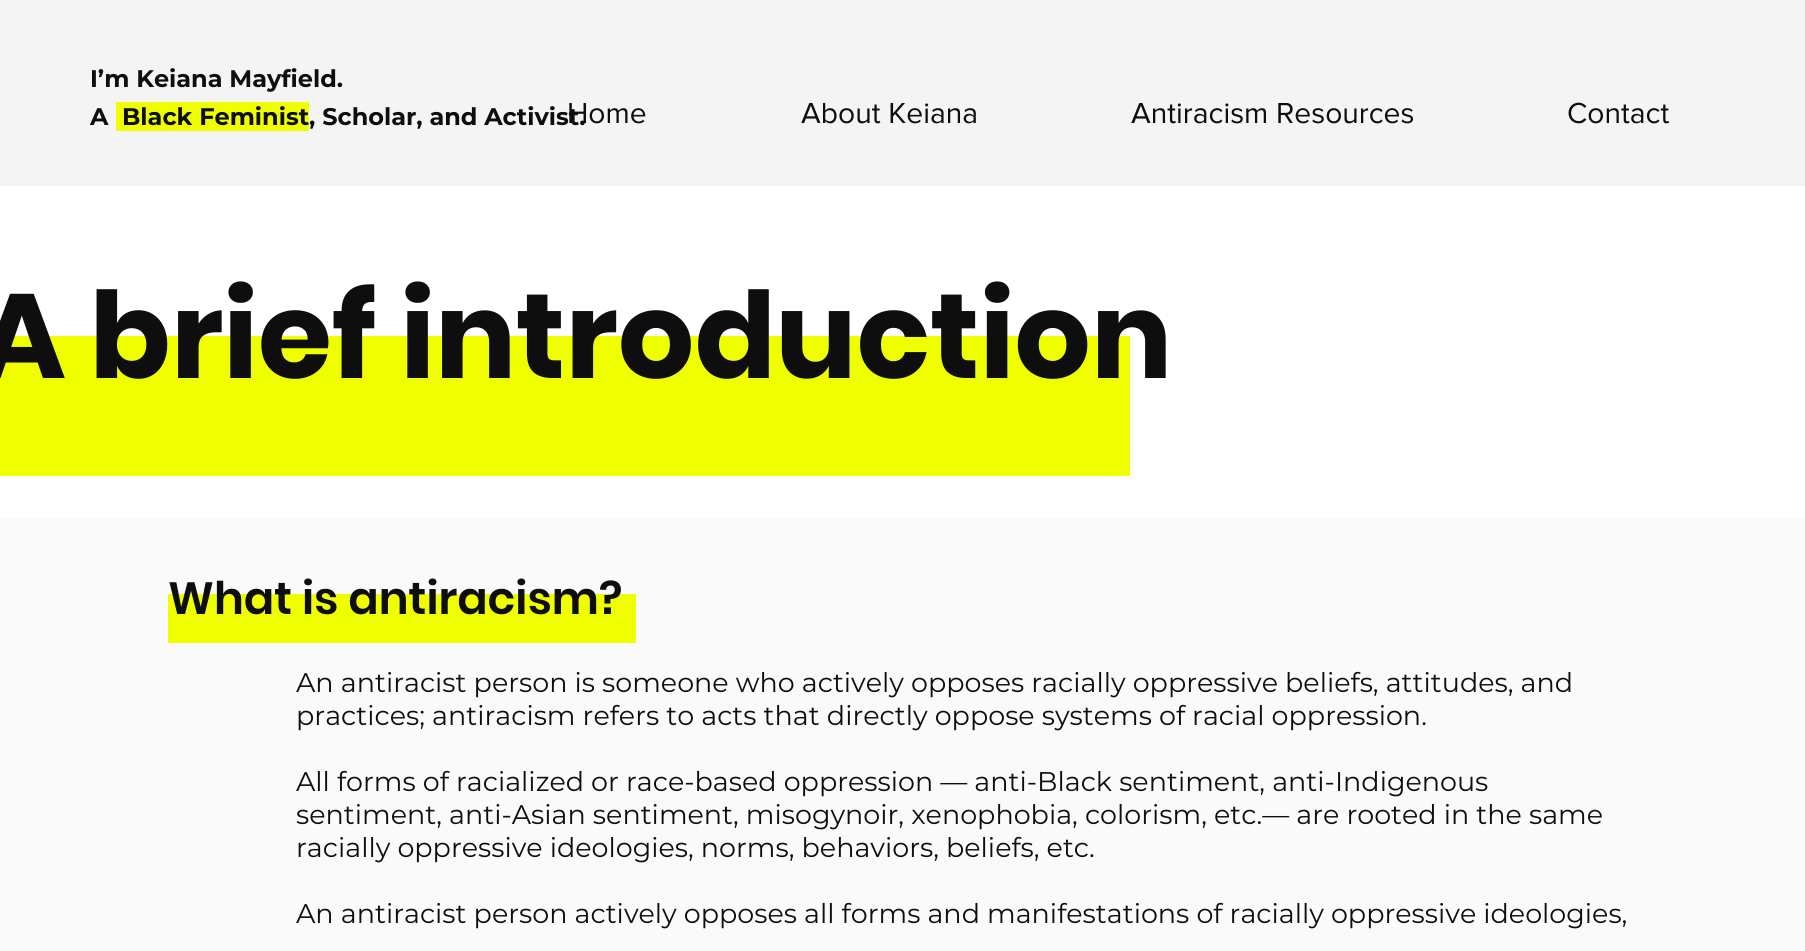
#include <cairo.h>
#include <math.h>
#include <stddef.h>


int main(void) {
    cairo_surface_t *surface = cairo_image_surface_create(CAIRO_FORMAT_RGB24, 1805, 951);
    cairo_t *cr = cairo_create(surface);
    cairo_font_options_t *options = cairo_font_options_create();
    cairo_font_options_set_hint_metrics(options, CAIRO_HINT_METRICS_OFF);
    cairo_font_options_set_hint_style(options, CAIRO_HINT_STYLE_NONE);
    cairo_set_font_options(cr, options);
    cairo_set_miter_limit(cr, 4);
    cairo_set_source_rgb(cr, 1, 1, 1);
    cairo_paint(cr);
    cairo_set_source_rgb(cr, 0.957, 0.957, 0.957);
    cairo_rectangle(cr, 0, 0, 1805, 186);
    cairo_fill(cr);
    cairo_select_font_face(cr, "Montserrat", CAIRO_FONT_SLANT_NORMAL, CAIRO_FONT_WEIGHT_BOLD);
    cairo_set_font_size(cr, 24);
    cairo_set_source_rgb(cr, 0.059, 0.055, 0.055);
    cairo_move_to(cr, 90, 87);
    cairo_show_text(cr, "I’m Keiana Mayfield.");
    cairo_move_to(cr, 90, 125);
    cairo_show_text(cr, "A");
    cairo_set_source_rgb(cr, 0.941, 1, 0);
    cairo_rectangle(cr, 116, 102, 193, 29);
    cairo_fill(cr);
    cairo_set_source_rgb(cr, 0.059, 0.055, 0.055);
    cairo_move_to(cr, 122, 125);
    cairo_show_text(cr, "Black Feminist, Scholar, and Activist.");
    cairo_select_font_face(cr, "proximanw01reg", CAIRO_FONT_SLANT_NORMAL, CAIRO_FONT_WEIGHT_NORMAL);
    cairo_set_font_size(cr, 30);
    cairo_move_to(cr, 567, 123);
    cairo_show_text(cr, "Home");
    cairo_move_to(cr, 801, 123);
    cairo_show_text(cr, "About Keiana");
    cairo_move_to(cr, 1131, 123);
    cairo_show_text(cr, "Antiracism Resources");
    cairo_move_to(cr, 1567, 123);
    cairo_show_text(cr, "Contact");
    cairo_set_source_rgb(cr, 0.941, 1, 0);
    cairo_rectangle(cr, 0, 336, 1130, 140);
    cairo_fill(cr);
    cairo_select_font_face(cr, "Poppins", CAIRO_FONT_SLANT_NORMAL, CAIRO_FONT_WEIGHT_BOLD);
    cairo_set_font_size(cr, 120);
    cairo_set_source_rgb(cr, 0.059, 0.055, 0.055);
    cairo_move_to(cr, -22, 378);
    cairo_show_text(cr, "A brief introduction");
    cairo_set_source_rgb(cr, 0.98, 0.98, 0.98);
    cairo_rectangle(cr, 0, 518, 1805, 433);
    cairo_fill(cr);
    cairo_set_source_rgb(cr, 0.941, 1, 0);
    cairo_rectangle(cr, 168, 594, 468, 49);
    cairo_fill(cr);
    cairo_select_font_face(cr, "Poppins SemiBold", CAIRO_FONT_SLANT_NORMAL, CAIRO_FONT_WEIGHT_NORMAL);
    cairo_set_font_size(cr, 45);
    cairo_set_source_rgb(cr, 0.059, 0.055, 0.055);
    cairo_move_to(cr, 168, 614);
    cairo_show_text(cr, "What is antiracism?");
    cairo_select_font_face(cr, "Montserrat", CAIRO_FONT_SLANT_NORMAL, CAIRO_FONT_WEIGHT_NORMAL);
    cairo_set_font_size(cr, 27);
    cairo_move_to(cr, 296, 692);
    cairo_show_text(cr, "An antiracist person is someone who actively opposes racially oppressive beliefs, attitudes, and");
    cairo_move_to(cr, 296, 725);
    cairo_show_text(cr, "practices; antiracism refers to acts that directly oppose systems of racial oppression.");
    cairo_move_to(cr, 296, 791);
    cairo_show_text(cr, "All forms of racialized or race-based oppression — anti-Black sentiment, anti-Indigenous");
    cairo_move_to(cr, 296, 824);
    cairo_show_text(cr, "sentiment, anti-Asian sentiment, misogynoir, xenophobia, colorism, etc.— are rooted in the same");
    cairo_move_to(cr, 296, 857);
    cairo_show_text(cr, "racially oppressive ideologies, norms, behaviors, beliefs, etc.");
    cairo_move_to(cr, 296, 923);
    cairo_show_text(cr, "An antiracist person actively opposes all forms and manifestations of racially oppressive ideologies,");
    cairo_surface_write_to_png(surface, "page.png");
    cairo_font_options_destroy(options);
    cairo_destroy(cr);
    cairo_surface_destroy(surface);
    return 0;
}
